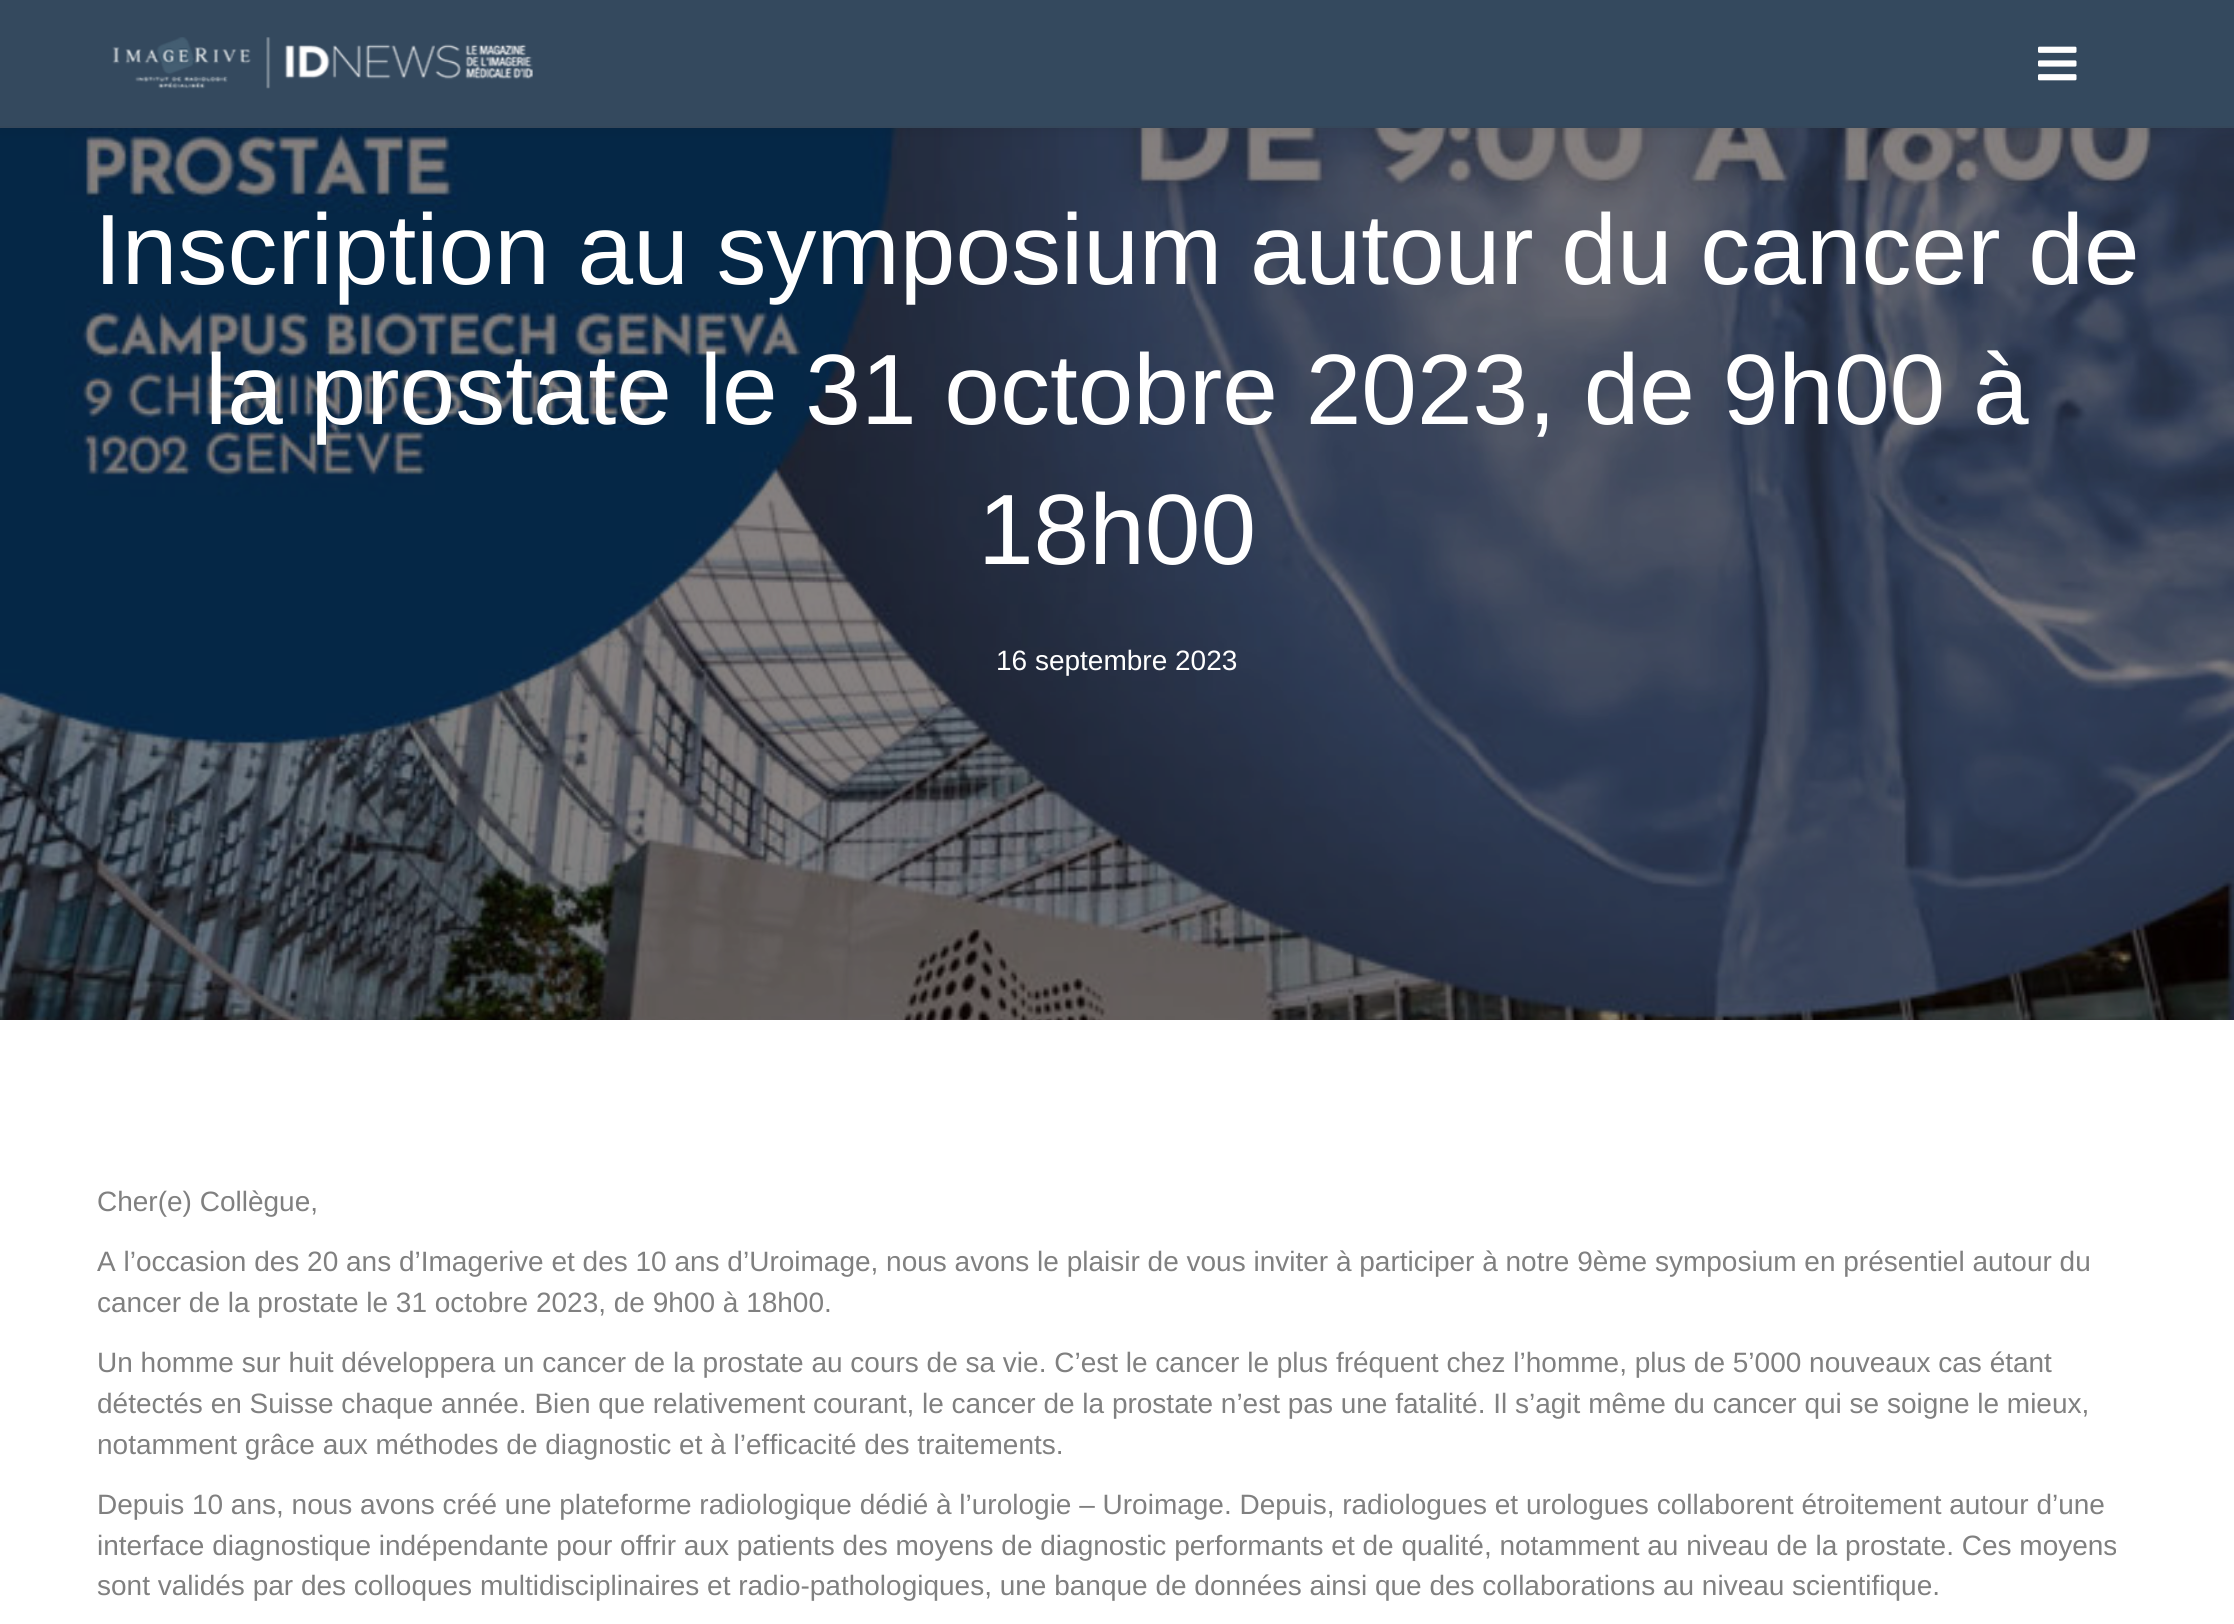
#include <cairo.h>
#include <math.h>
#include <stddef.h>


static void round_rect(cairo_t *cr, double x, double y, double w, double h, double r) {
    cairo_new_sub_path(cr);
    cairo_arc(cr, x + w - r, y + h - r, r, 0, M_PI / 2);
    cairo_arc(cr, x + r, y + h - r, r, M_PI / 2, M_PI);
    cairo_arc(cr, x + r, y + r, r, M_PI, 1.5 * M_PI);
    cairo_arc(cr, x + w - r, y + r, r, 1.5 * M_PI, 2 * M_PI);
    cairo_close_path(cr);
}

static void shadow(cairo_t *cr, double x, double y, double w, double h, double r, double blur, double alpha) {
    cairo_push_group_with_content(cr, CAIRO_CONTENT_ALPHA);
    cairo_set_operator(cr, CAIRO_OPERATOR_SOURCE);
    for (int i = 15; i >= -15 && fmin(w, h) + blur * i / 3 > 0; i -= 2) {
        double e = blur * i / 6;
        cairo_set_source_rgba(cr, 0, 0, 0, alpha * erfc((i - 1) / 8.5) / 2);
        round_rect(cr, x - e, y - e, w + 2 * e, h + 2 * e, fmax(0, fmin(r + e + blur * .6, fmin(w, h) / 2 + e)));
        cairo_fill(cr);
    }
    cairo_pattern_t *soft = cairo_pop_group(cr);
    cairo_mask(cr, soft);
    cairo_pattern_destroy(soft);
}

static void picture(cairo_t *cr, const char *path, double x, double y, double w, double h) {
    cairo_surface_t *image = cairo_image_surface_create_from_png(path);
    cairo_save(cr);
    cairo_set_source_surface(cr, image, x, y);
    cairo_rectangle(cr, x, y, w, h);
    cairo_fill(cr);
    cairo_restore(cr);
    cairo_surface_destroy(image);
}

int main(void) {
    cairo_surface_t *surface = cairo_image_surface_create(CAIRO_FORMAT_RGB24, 2234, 1624);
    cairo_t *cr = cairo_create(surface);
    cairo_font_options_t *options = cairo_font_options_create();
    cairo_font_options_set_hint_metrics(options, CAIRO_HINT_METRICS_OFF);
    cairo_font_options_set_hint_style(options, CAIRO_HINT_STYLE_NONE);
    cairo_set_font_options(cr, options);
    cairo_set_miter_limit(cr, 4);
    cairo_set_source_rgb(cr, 1, 1, 1);
    cairo_paint(cr);
    picture(cr, "img3.png", 0, 128, 2234, 892);
    cairo_set_source_rgb(cr, 0, 0, 0);
    shadow(cr, 0, 0, 2234, 128, 0, 7, 0.1);
    cairo_set_source_rgb(cr, 0.204, 0.286, 0.369);
    cairo_rectangle(cr, 0, 0, 2234, 126);
    cairo_fill(cr);
    cairo_set_source_rgb(cr, 0.208, 0.278, 0.353);
    cairo_rectangle(cr, 0, 126, 2234, 2);
    cairo_fill(cr);
    picture(cr, "img1.png", 112, 37, 421, 52);
    picture(cr, "img2.png", 2038, 46, 39, 35);
    cairo_select_font_face(cr, "Liberation Sans", CAIRO_FONT_SLANT_NORMAL, CAIRO_FONT_WEIGHT_NORMAL);
    cairo_set_font_size(cr, 100);
    cairo_set_source_rgb(cr, 1, 1, 1);
    cairo_move_to(cr, 94, 284);
    cairo_show_text(cr, "Inscription au symposium autour du cancer de");
    cairo_move_to(cr, 205, 424);
    cairo_show_text(cr, "la prostate le 31 octobre 2023, de 9h00 à");
    cairo_move_to(cr, 978, 564);
    cairo_show_text(cr, "18h00");
    cairo_set_font_size(cr, 28);
    cairo_move_to(cr, 996, 670);
    cairo_show_text(cr, "16 septembre 2023");
    cairo_set_source_rgb(cr, 0.502, 0.502, 0.502);
    cairo_move_to(cr, 97, 1211);
    cairo_show_text(cr, "Cher(e) Collègue,");
    cairo_move_to(cr, 97, 1271);
    cairo_show_text(cr, "A l’occasion des 20 ans d’Imagerive et des 10 ans d’Uroimage, nous avons le plaisir de vous inviter à participer à notre 9ème symposium en présentiel autour du");
    cairo_move_to(cr, 97, 1312);
    cairo_show_text(cr, "cancer de la prostate le 31 octobre 2023, de 9h00 à 18h00.");
    cairo_move_to(cr, 97, 1372);
    cairo_show_text(cr, "Un homme sur huit développera un cancer de la prostate au cours de sa vie. C’est le cancer le plus fréquent chez l’homme, plus de 5’000 nouveaux cas étant");
    cairo_move_to(cr, 97, 1413);
    cairo_show_text(cr, "détectés en Suisse chaque année. Bien que relativement courant, le cancer de la prostate n’est pas une fatalité. Il s’agit même du cancer qui se soigne le mieux,");
    cairo_move_to(cr, 97, 1454);
    cairo_show_text(cr, "notamment grâce aux méthodes de diagnostic et à l’efficacité des traitements.");
    cairo_move_to(cr, 97, 1514);
    cairo_show_text(cr, "Depuis 10 ans, nous avons créé une plateforme radiologique dédié à l’urologie – Uroimage. Depuis, radiologues et urologues collaborent étroitement autour d’une");
    cairo_move_to(cr, 97, 1555);
    cairo_show_text(cr, "interface diagnostique indépendante pour offrir aux patients des moyens de diagnostic performants et de qualité, notamment au niveau de la prostate. Ces moyens");
    cairo_move_to(cr, 97, 1595);
    cairo_show_text(cr, "sont validés par des colloques multidisciplinaires et radio-pathologiques, une banque de données ainsi que des collaborations au niveau scientifique.");
    cairo_surface_write_to_png(surface, "page.png");
    cairo_font_options_destroy(options);
    cairo_destroy(cr);
    cairo_surface_destroy(surface);
    return 0;
}
